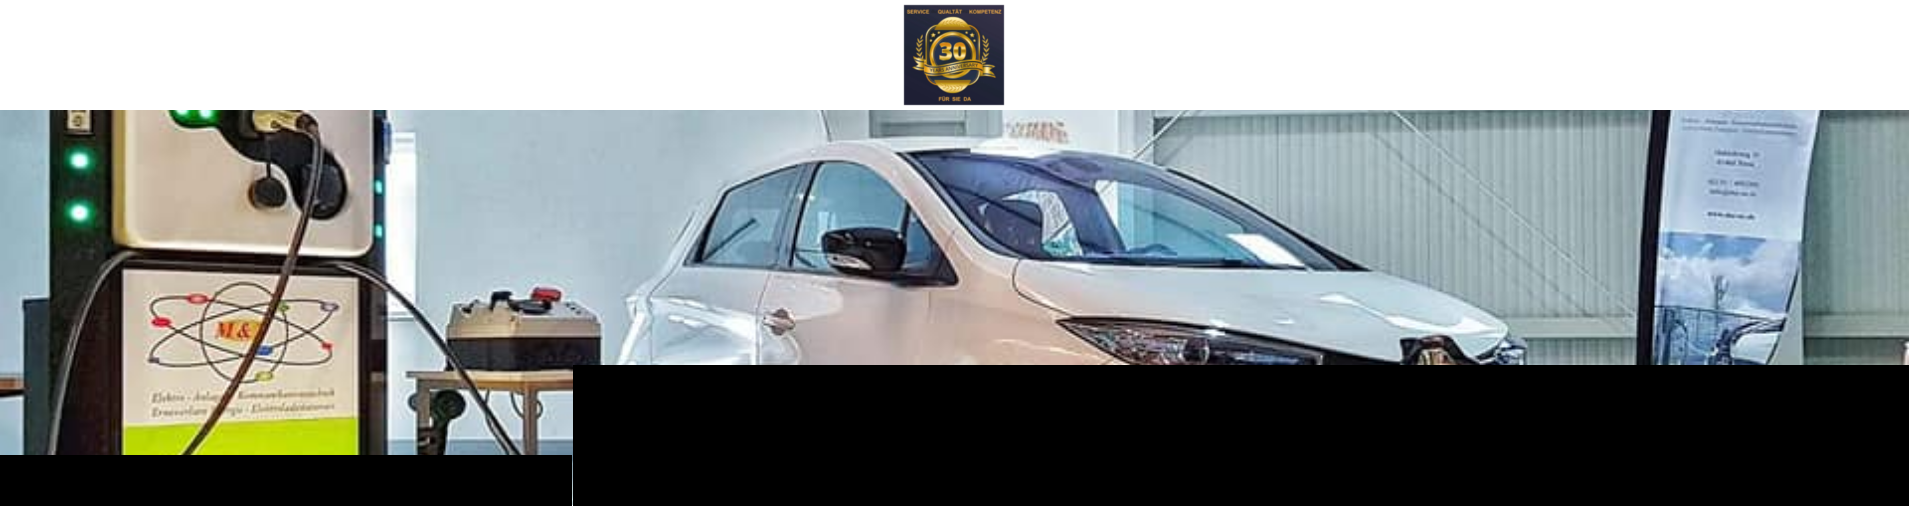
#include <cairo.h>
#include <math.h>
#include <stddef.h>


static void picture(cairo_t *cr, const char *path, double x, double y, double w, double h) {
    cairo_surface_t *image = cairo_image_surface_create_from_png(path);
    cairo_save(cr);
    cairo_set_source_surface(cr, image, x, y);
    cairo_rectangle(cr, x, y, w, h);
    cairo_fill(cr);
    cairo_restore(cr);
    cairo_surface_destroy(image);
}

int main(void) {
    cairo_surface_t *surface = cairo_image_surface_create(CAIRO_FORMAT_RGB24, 1909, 526);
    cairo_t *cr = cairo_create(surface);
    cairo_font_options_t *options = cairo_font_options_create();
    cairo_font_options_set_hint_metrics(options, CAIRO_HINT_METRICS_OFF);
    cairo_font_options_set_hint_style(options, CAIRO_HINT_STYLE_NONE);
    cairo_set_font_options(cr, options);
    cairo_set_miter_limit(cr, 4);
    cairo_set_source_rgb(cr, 1, 1, 1);
    cairo_paint(cr);
    picture(cr, "img1.png", 903, 4, 102, 102);
    picture(cr, "img2.png", 0, 110, 1909, 395);
    cairo_set_source_rgb(cr, 0, 0, 0);
    cairo_rectangle(cr, 0, 455, 572, 51);
    cairo_fill(cr);
    cairo_rectangle(cr, 573, 365, 1336, 141);
    cairo_fill(cr);
    cairo_surface_write_to_png(surface, "page.png");
    cairo_font_options_destroy(options);
    cairo_destroy(cr);
    cairo_surface_destroy(surface);
    return 0;
}
